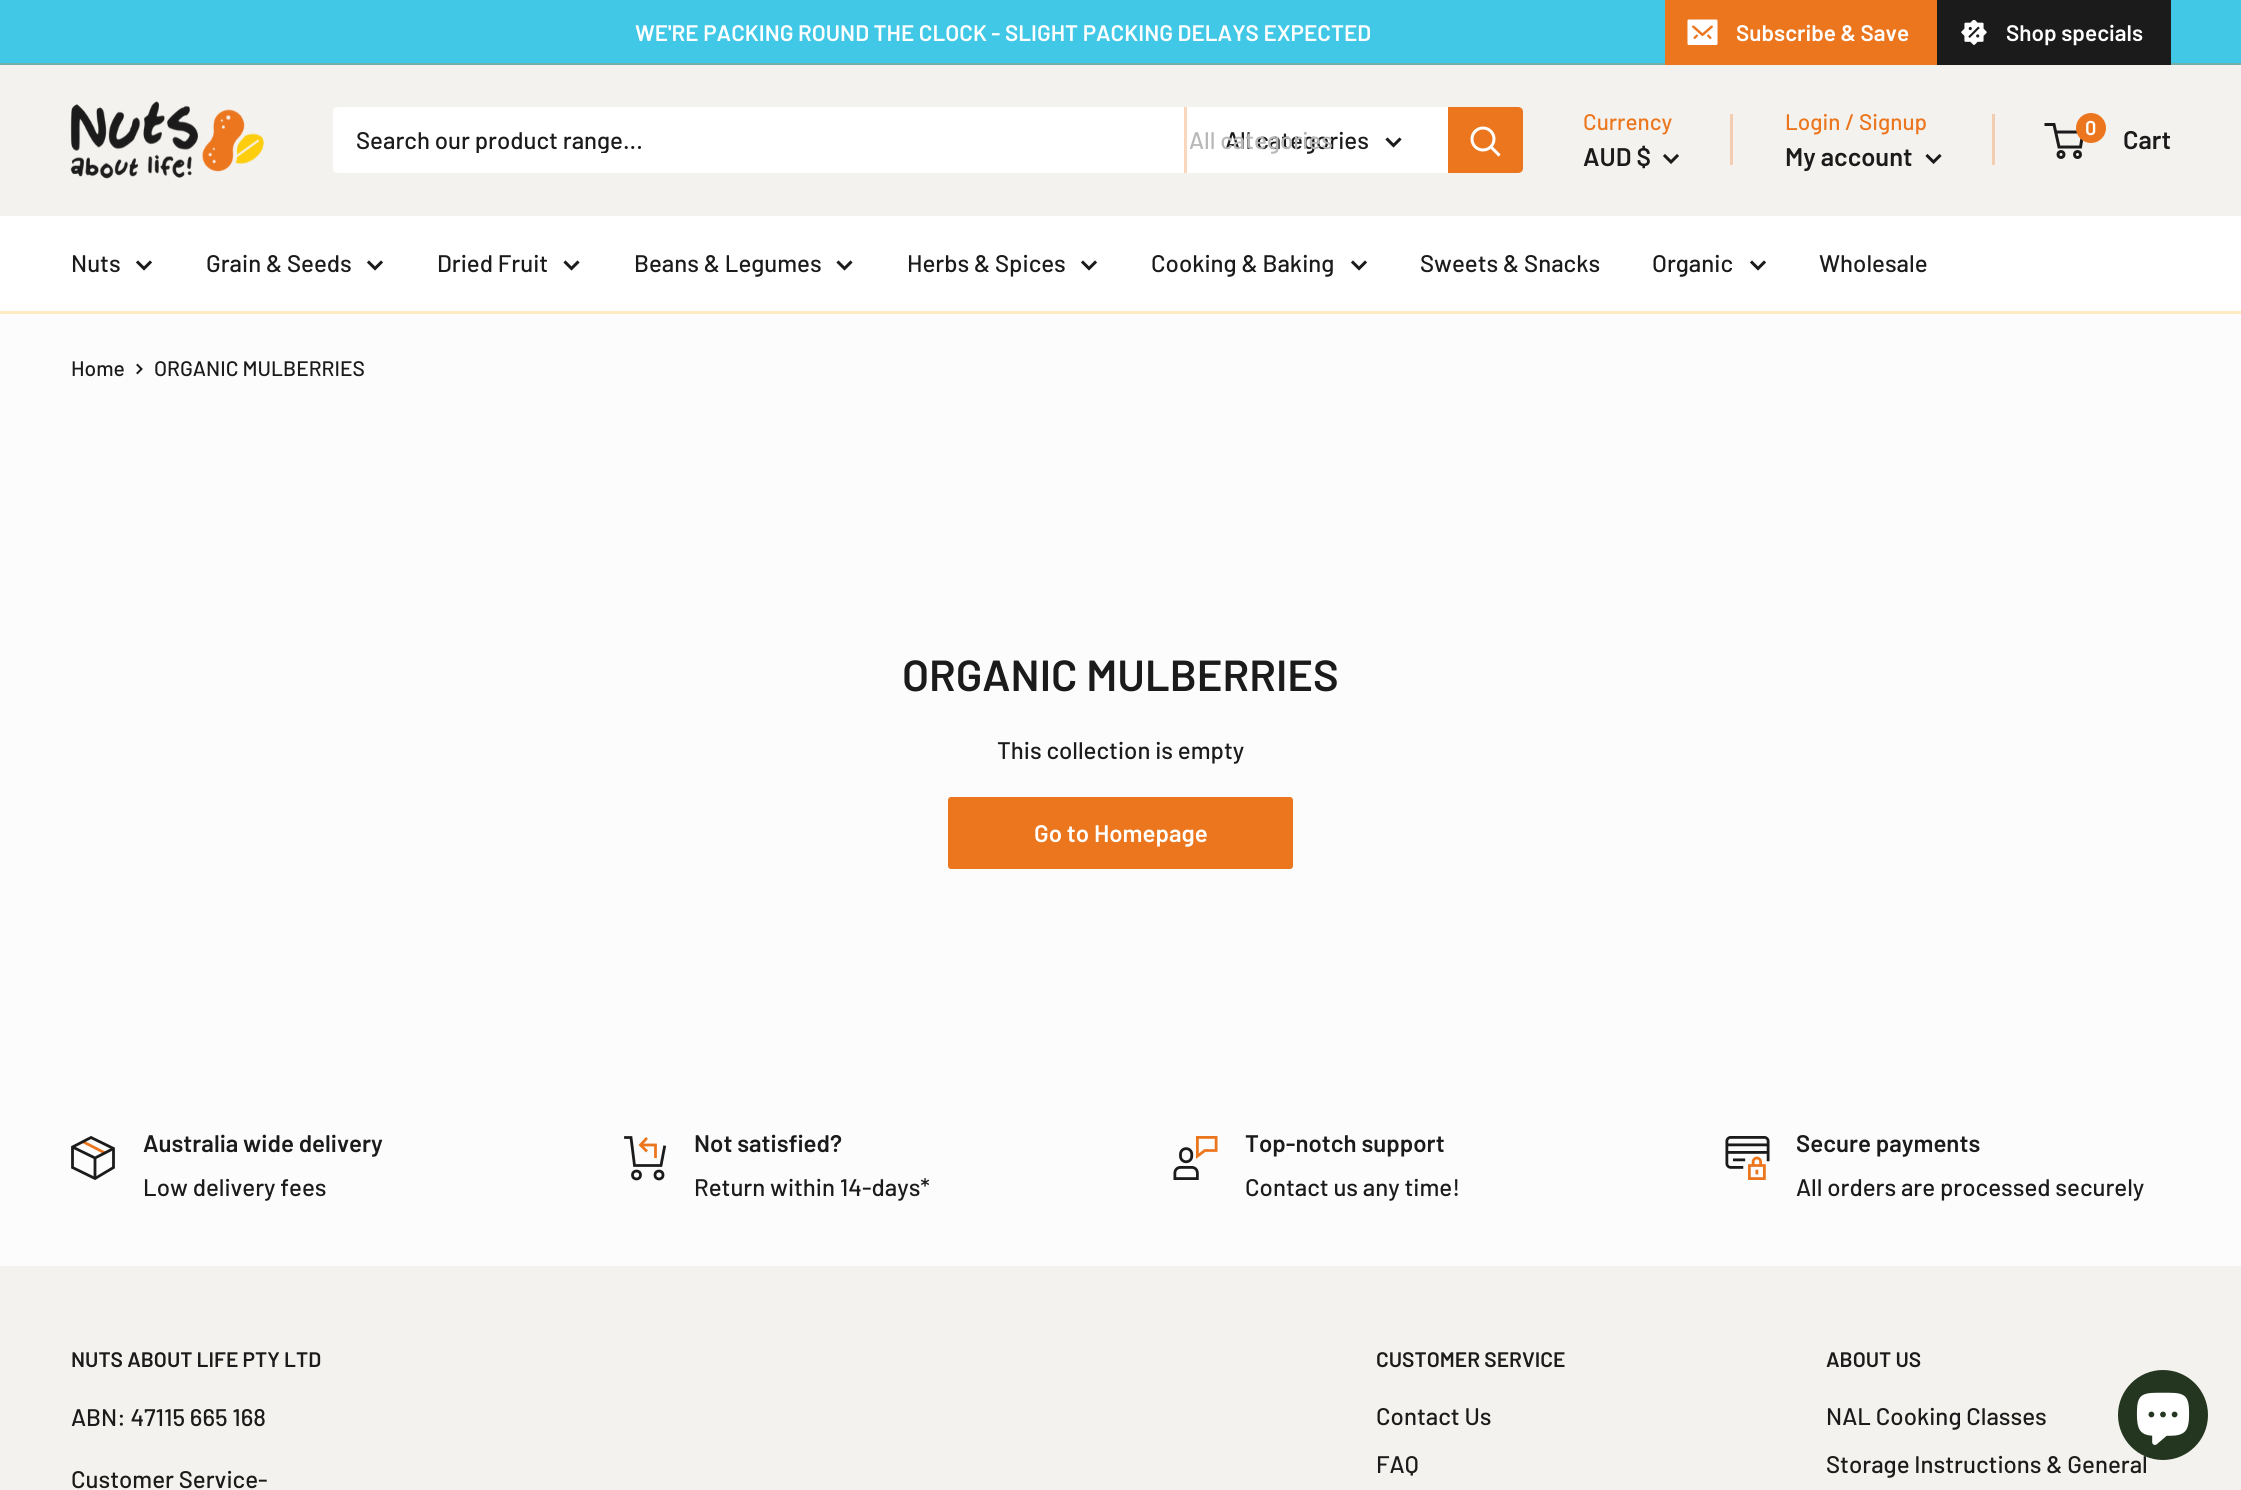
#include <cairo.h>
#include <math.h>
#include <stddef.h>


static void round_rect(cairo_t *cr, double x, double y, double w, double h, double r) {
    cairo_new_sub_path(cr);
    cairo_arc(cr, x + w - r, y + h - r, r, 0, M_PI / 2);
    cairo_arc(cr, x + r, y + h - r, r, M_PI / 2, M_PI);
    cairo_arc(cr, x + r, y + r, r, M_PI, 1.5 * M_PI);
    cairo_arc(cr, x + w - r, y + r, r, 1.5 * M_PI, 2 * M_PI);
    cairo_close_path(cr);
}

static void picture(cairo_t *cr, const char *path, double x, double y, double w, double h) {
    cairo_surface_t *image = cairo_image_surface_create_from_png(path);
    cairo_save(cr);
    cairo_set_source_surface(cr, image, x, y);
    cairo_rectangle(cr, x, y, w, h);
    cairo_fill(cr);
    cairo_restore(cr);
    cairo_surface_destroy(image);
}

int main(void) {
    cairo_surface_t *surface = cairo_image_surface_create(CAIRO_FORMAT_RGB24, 2241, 1490);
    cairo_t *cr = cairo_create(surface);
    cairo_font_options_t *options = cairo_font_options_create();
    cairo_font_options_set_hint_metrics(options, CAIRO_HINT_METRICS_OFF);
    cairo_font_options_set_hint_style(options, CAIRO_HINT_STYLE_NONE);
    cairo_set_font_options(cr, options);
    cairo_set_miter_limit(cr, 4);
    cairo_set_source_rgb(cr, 0.988, 0.988, 0.988);
    cairo_paint(cr);
    cairo_set_source_rgb(cr, 0.255, 0.784, 0.906);
    cairo_rectangle(cr, 0, 0, 2241, 63);
    cairo_fill(cr);
    cairo_set_source_rgb(cr, 0.455, 0.686, 0.671);
    cairo_rectangle(cr, 0, 63, 2241, 2);
    cairo_fill(cr);
    cairo_select_font_face(cr, "Barlow SemiBold", CAIRO_FONT_SLANT_NORMAL, CAIRO_FONT_WEIGHT_NORMAL);
    cairo_set_font_size(cr, 22.5);
    cairo_set_source_rgb(cr, 1, 1, 1);
    cairo_move_to(cr, 635, 41);
    cairo_show_text(cr, "WE'RE PACKING ROUND THE CLOCK - SLIGHT PACKING DELAYS EXPECTED");
    cairo_set_source_rgb(cr, 0.925, 0.463, 0.118);
    cairo_new_path(cr);
    cairo_move_to(cr, 1665, 63);
    cairo_line_to(cr, 1665, 65);
    cairo_line_to(cr, 1937, 65);
    cairo_line_to(cr, 1937, 2);
    cairo_line_to(cr, 1936, 2);
    cairo_line_to(cr, 1936, 63);
    cairo_close_path(cr);
    cairo_fill(cr);
    cairo_rectangle(cr, 1665, 0, 272, 63);
    cairo_fill(cr);
    picture(cr, "img1.png", 1687, 19, 31, 26);
    cairo_set_source_rgb(cr, 1, 1, 1);
    cairo_move_to(cr, 1736, 41);
    cairo_show_text(cr, "Subscribe & Save");
    cairo_set_source_rgb(cr, 0.106, 0.106, 0.106);
    cairo_new_path(cr);
    cairo_move_to(cr, 1937, 63);
    cairo_line_to(cr, 1937, 65);
    cairo_line_to(cr, 2171, 65);
    cairo_line_to(cr, 2171, 2);
    cairo_line_to(cr, 2170, 2);
    cairo_line_to(cr, 2170, 63);
    cairo_close_path(cr);
    cairo_fill(cr);
    cairo_rectangle(cr, 1937, 0, 234, 63);
    cairo_fill(cr);
    picture(cr, "img2.png", 1961, 20, 26, 25);
    cairo_set_source_rgb(cr, 1, 1, 1);
    cairo_move_to(cr, 2006, 41);
    cairo_show_text(cr, "Shop specials");
    cairo_set_source_rgb(cr, 0.957, 0.949, 0.933);
    cairo_rectangle(cr, 0, 65, 2241, 151);
    cairo_fill(cr);
    picture(cr, "img3.png", 70, 101, 194, 78);
    cairo_set_source_rgb(cr, 1, 1, 1);
    round_rect(cr, 333, 107, 1190, 66, 5);
    cairo_fill(cr);
    cairo_save(cr);
    cairo_rectangle(cr, 356, 125, 805, 28);
    cairo_clip(cr);
    cairo_select_font_face(cr, "Barlow Medium", CAIRO_FONT_SLANT_NORMAL, CAIRO_FONT_WEIGHT_NORMAL);
    cairo_set_font_size(cr, 24);
    cairo_set_source_rgb(cr, 0.106, 0.106, 0.106);
    cairo_move_to(cr, 356, 149);
    cairo_show_text(cr, "Search our product range...");
    cairo_restore(cr);
    cairo_set_source_rgb(cr, 0.976, 0.839, 0.737);
    cairo_rectangle(cr, 1184, 107, 3, 66);
    cairo_fill(cr);
    cairo_select_font_face(cr, "Barlow Medium", CAIRO_FONT_SLANT_NORMAL, CAIRO_FONT_WEIGHT_NORMAL);
    cairo_set_font_size(cr, 24);
    cairo_set_source_rgb(cr, 0.106, 0.106, 0.106);
    cairo_move_to(cr, 1225, 149);
    cairo_show_text(cr, "All categories");
    cairo_set_source_rgb(cr, 0.722, 0.722, 0.722);
    cairo_move_to(cr, 1189, 149);
    cairo_show_text(cr, "All categories");
    cairo_new_path(cr);
    cairo_move_to(cr, 1399.5, 139.5);
    cairo_line_to(cr, 1393.5, 145.5);
    cairo_line_to(cr, 1387.5, 139.5);
    cairo_set_source_rgb(cr, 0.106, 0.106, 0.106);
    cairo_set_line_width(cr, 3);
    cairo_set_line_cap(cr, CAIRO_LINE_CAP_SQUARE);
    cairo_stroke(cr);
    cairo_set_source_rgb(cr, 0.925, 0.463, 0.118);
    cairo_new_path(cr);
    cairo_move_to(cr, 1448, 107);
    cairo_line_to(cr, 1518, 107);
    cairo_curve_to(cr, 1521, 107, 1523, 109, 1523, 112);
    cairo_line_to(cr, 1523, 168);
    cairo_curve_to(cr, 1523, 171, 1521, 173, 1518, 173);
    cairo_line_to(cr, 1448, 173);
    cairo_close_path(cr);
    cairo_fill(cr);
    cairo_new_path(cr);
    cairo_move_to(cr, 1498.5, 154.5);
    cairo_line_to(cr, 1491, 147);
    cairo_set_source_rgb(cr, 1, 1, 1);
    cairo_stroke(cr);
    cairo_arc(cr, 1483, 139, 11, 0, 2 * M_PI);
    cairo_set_line_cap(cr, CAIRO_LINE_CAP_BUTT);
    cairo_stroke(cr);
    cairo_set_font_size(cr, 22.5);
    cairo_set_source_rgb(cr, 0.925, 0.463, 0.118);
    cairo_move_to(cr, 1583, 130);
    cairo_show_text(cr, "Currency");
    cairo_select_font_face(cr, "Barlow SemiBold", CAIRO_FONT_SLANT_NORMAL, CAIRO_FONT_WEIGHT_NORMAL);
    cairo_set_font_size(cr, 25.5);
    cairo_set_source_rgb(cr, 0.106, 0.106, 0.106);
    cairo_move_to(cr, 1583, 166);
    cairo_show_text(cr, "AUD $");
    cairo_new_path(cr);
    cairo_move_to(cr, 1677, 156);
    cairo_line_to(cr, 1671, 162);
    cairo_line_to(cr, 1665, 156);
    cairo_set_line_cap(cr, CAIRO_LINE_CAP_SQUARE);
    cairo_stroke(cr);
    cairo_set_source_rgb(cr, 0.949, 0.804, 0.69);
    cairo_rectangle(cr, 1730, 114, 3, 51);
    cairo_fill(cr);
    cairo_select_font_face(cr, "Barlow Medium", CAIRO_FONT_SLANT_NORMAL, CAIRO_FONT_WEIGHT_NORMAL);
    cairo_set_font_size(cr, 22.5);
    cairo_set_source_rgb(cr, 0.925, 0.463, 0.118);
    cairo_move_to(cr, 1785, 130);
    cairo_show_text(cr, "Login / Signup");
    cairo_set_source_rgb(cr, 0.949, 0.804, 0.69);
    cairo_rectangle(cr, 1992, 114, 3, 51);
    cairo_fill(cr);
    cairo_select_font_face(cr, "Barlow SemiBold", CAIRO_FONT_SLANT_NORMAL, CAIRO_FONT_WEIGHT_NORMAL);
    cairo_set_font_size(cr, 25.5);
    cairo_set_source_rgb(cr, 0.106, 0.106, 0.106);
    cairo_move_to(cr, 1785, 166);
    cairo_show_text(cr, "My account");
    cairo_new_path(cr);
    cairo_move_to(cr, 1939.5, 156);
    cairo_line_to(cr, 1933.5, 162);
    cairo_line_to(cr, 1927.5, 156);
    cairo_stroke(cr);
    cairo_arc(cr, 2061, 154.5, 3, 0, 2 * M_PI);
    cairo_set_line_cap(cr, CAIRO_LINE_CAP_BUTT);
    cairo_stroke(cr);
    cairo_arc(cr, 2077.5, 154.5, 3, 0, 2 * M_PI);
    cairo_stroke(cr);
    cairo_new_path(cr);
    cairo_move_to(cr, 2055.5, 132);
    cairo_line_to(cr, 2083, 132);
    cairo_line_to(cr, 2080.5, 147);
    cairo_line_to(cr, 2059, 147);
    cairo_line_to(cr, 2054, 124.5);
    cairo_line_to(cr, 2044.5, 124.5);
    cairo_stroke(cr);
    cairo_set_source_rgb(cr, 0.925, 0.463, 0.118);
    cairo_arc(cr, 2091, 128, 15, 0, 2 * M_PI);
    cairo_fill(cr);
    cairo_set_font_size(cr, 20);
    cairo_set_source_rgb(cr, 1, 1, 1);
    cairo_move_to(cr, 2085, 135);
    cairo_show_text(cr, "0");
    cairo_set_font_size(cr, 25.5);
    cairo_set_source_rgb(cr, 0.106, 0.106, 0.106);
    cairo_move_to(cr, 2123, 149);
    cairo_show_text(cr, "Cart");
    cairo_set_source_rgb(cr, 1, 1, 1);
    cairo_rectangle(cr, 0, 216, 2241, 95);
    cairo_fill(cr);
    cairo_set_source_rgb(cr, 1, 0.918, 0.757);
    cairo_rectangle(cr, 0, 311, 2241, 3);
    cairo_fill(cr);
    cairo_select_font_face(cr, "Barlow Medium", CAIRO_FONT_SLANT_NORMAL, CAIRO_FONT_WEIGHT_NORMAL);
    cairo_set_font_size(cr, 24);
    cairo_set_source_rgb(cr, 0.106, 0.106, 0.106);
    cairo_move_to(cr, 71, 272);
    cairo_show_text(cr, "Nuts");
    cairo_new_path(cr);
    cairo_move_to(cr, 150, 262.5);
    cairo_line_to(cr, 144, 268.5);
    cairo_line_to(cr, 138, 262.5);
    cairo_set_line_cap(cr, CAIRO_LINE_CAP_SQUARE);
    cairo_stroke(cr);
    cairo_move_to(cr, 206, 272);
    cairo_show_text(cr, "Grain & Seeds");
    cairo_new_path(cr);
    cairo_move_to(cr, 381, 262.5);
    cairo_line_to(cr, 375, 268.5);
    cairo_line_to(cr, 369, 262.5);
    cairo_stroke(cr);
    cairo_move_to(cr, 437, 272);
    cairo_show_text(cr, "Dried Fruit");
    cairo_new_path(cr);
    cairo_move_to(cr, 577.5, 262.5);
    cairo_line_to(cr, 571.5, 268.5);
    cairo_line_to(cr, 565.5, 262.5);
    cairo_stroke(cr);
    cairo_move_to(cr, 634, 272);
    cairo_show_text(cr, "Beans & Legumes");
    cairo_new_path(cr);
    cairo_move_to(cr, 850.5, 262.5);
    cairo_line_to(cr, 844.5, 268.5);
    cairo_line_to(cr, 838.5, 262.5);
    cairo_stroke(cr);
    cairo_move_to(cr, 907, 272);
    cairo_show_text(cr, "Herbs & Spices");
    cairo_new_path(cr);
    cairo_move_to(cr, 1095, 262.5);
    cairo_line_to(cr, 1089, 268.5);
    cairo_line_to(cr, 1083, 262.5);
    cairo_stroke(cr);
    cairo_move_to(cr, 1151, 272);
    cairo_show_text(cr, "Cooking & Baking");
    cairo_new_path(cr);
    cairo_move_to(cr, 1365, 262.5);
    cairo_line_to(cr, 1359, 268.5);
    cairo_line_to(cr, 1353, 262.5);
    cairo_stroke(cr);
    cairo_move_to(cr, 1420, 272);
    cairo_show_text(cr, "Sweets & Snacks");
    cairo_move_to(cr, 1652, 272);
    cairo_show_text(cr, "Organic");
    cairo_new_path(cr);
    cairo_move_to(cr, 1764, 262.5);
    cairo_line_to(cr, 1758, 268.5);
    cairo_line_to(cr, 1752, 262.5);
    cairo_stroke(cr);
    cairo_move_to(cr, 1819, 272);
    cairo_show_text(cr, "Wholesale");
    cairo_set_font_size(cr, 21);
    cairo_move_to(cr, 71, 376);
    cairo_show_text(cr, "Home");
    cairo_new_path(cr);
    cairo_move_to(cr, 137.5, 365);
    cairo_line_to(cr, 141.5, 369);
    cairo_line_to(cr, 137.5, 373);
    cairo_set_line_width(cr, 2);
    cairo_stroke(cr);
    cairo_move_to(cr, 154, 376);
    cairo_show_text(cr, "ORGANIC MULBERRIES");
    cairo_select_font_face(cr, "Barlow SemiBold", CAIRO_FONT_SLANT_NORMAL, CAIRO_FONT_WEIGHT_NORMAL);
    cairo_set_font_size(cr, 43.5);
    cairo_move_to(cr, 902, 691);
    cairo_show_text(cr, "ORGANIC MULBERRIES");
    cairo_select_font_face(cr, "Barlow Medium", CAIRO_FONT_SLANT_NORMAL, CAIRO_FONT_WEIGHT_NORMAL);
    cairo_set_font_size(cr, 24);
    cairo_move_to(cr, 997, 759);
    cairo_show_text(cr, "This collection is empty");
    cairo_set_source_rgb(cr, 0.925, 0.463, 0.118);
    round_rect(cr, 948, 797, 345, 72, 3);
    cairo_fill(cr);
    cairo_select_font_face(cr, "Barlow SemiBold", CAIRO_FONT_SLANT_NORMAL, CAIRO_FONT_WEIGHT_NORMAL);
    cairo_set_source_rgb(cr, 1, 1, 1);
    cairo_move_to(cr, 1034, 842);
    cairo_show_text(cr, "Go to Homepage");
    cairo_new_path(cr);
    cairo_move_to(cr, 82.5, 1141.5);
    cairo_line_to(cr, 105, 1153);
    cairo_set_source_rgb(cr, 0.925, 0.463, 0.118);
    cairo_set_line_width(cr, 2.8);
    cairo_set_line_cap(cr, CAIRO_LINE_CAP_BUTT);
    cairo_stroke(cr);
    cairo_new_path(cr);
    cairo_move_to(cr, 113.5, 1148.5);
    cairo_line_to(cr, 95, 1158);
    cairo_line_to(cr, 72.5, 1147);
    cairo_move_to(cr, 95, 1158);
    cairo_line_to(cr, 95, 1178.5);
    cairo_set_source_rgb(cr, 0.106, 0.106, 0.106);
    cairo_stroke(cr);
    cairo_new_path(cr);
    cairo_move_to(cr, 113.5, 1148.5);
    cairo_line_to(cr, 113.5, 1167.5);
    cairo_line_to(cr, 95, 1178.5);
    cairo_line_to(cr, 72.5, 1167.5);
    cairo_line_to(cr, 72.5, 1147);
    cairo_line_to(cr, 91, 1137.5);
    cairo_close_path(cr);
    cairo_set_line_cap(cr, CAIRO_LINE_CAP_SQUARE);
    cairo_stroke(cr);
    cairo_move_to(cr, 143, 1152);
    cairo_show_text(cr, "Australia wide delivery");
    cairo_select_font_face(cr, "Barlow Medium", CAIRO_FONT_SLANT_NORMAL, CAIRO_FONT_WEIGHT_NORMAL);
    cairo_move_to(cr, 143, 1196);
    cairo_show_text(cr, "Low delivery fees");
    cairo_new_path(cr);
    cairo_move_to(cr, 640.5, 1145);
    cairo_line_to(cr, 655.5, 1145);
    cairo_line_to(cr, 655.5, 1158);
    cairo_set_source_rgb(cr, 0.925, 0.463, 0.118);
    cairo_set_line_cap(cr, CAIRO_LINE_CAP_BUTT);
    cairo_stroke(cr);
    cairo_new_path(cr);
    cairo_move_to(cr, 646, 1150.5);
    cairo_line_to(cr, 640.5, 1145);
    cairo_line_to(cr, 646, 1139);
    cairo_set_line_cap(cr, CAIRO_LINE_CAP_SQUARE);
    cairo_stroke(cr);
    cairo_new_path(cr);
    cairo_move_to(cr, 664.5, 1147);
    cairo_line_to(cr, 661, 1165.5);
    cairo_line_to(cr, 634.5, 1165.5);
    cairo_line_to(cr, 631, 1137.5);
    cairo_line_to(cr, 625.5, 1137.5);
    cairo_set_source_rgb(cr, 0.106, 0.106, 0.106);
    cairo_stroke(cr);
    cairo_arc(cr, 636.5, 1175, 4, 0, 2 * M_PI);
    cairo_set_line_cap(cr, CAIRO_LINE_CAP_BUTT);
    cairo_stroke(cr);
    cairo_arc(cr, 659, 1175, 4, 0, 2 * M_PI);
    cairo_stroke(cr);
    cairo_select_font_face(cr, "Barlow SemiBold", CAIRO_FONT_SLANT_NORMAL, CAIRO_FONT_WEIGHT_NORMAL);
    cairo_move_to(cr, 694, 1152);
    cairo_show_text(cr, "Not satisfied?");
    cairo_select_font_face(cr, "Barlow Medium", CAIRO_FONT_SLANT_NORMAL, CAIRO_FONT_WEIGHT_NORMAL);
    cairo_move_to(cr, 694, 1196);
    cairo_show_text(cr, "Return within 14-days*");
    picture(cr, "img4.png", 1173, 1136, 45, 44);
    cairo_select_font_face(cr, "Barlow SemiBold", CAIRO_FONT_SLANT_NORMAL, CAIRO_FONT_WEIGHT_NORMAL);
    cairo_move_to(cr, 1245, 1152);
    cairo_show_text(cr, "Top-notch support");
    cairo_select_font_face(cr, "Barlow Medium", CAIRO_FONT_SLANT_NORMAL, CAIRO_FONT_WEIGHT_NORMAL);
    cairo_move_to(cr, 1245, 1196);
    cairo_show_text(cr, "Contact us any time!");
    picture(cr, "img5.png", 1725, 1136, 45, 44);
    cairo_select_font_face(cr, "Barlow SemiBold", CAIRO_FONT_SLANT_NORMAL, CAIRO_FONT_WEIGHT_NORMAL);
    cairo_move_to(cr, 1796, 1152);
    cairo_show_text(cr, "Secure payments");
    cairo_select_font_face(cr, "Barlow Medium", CAIRO_FONT_SLANT_NORMAL, CAIRO_FONT_WEIGHT_NORMAL);
    cairo_move_to(cr, 1796, 1196);
    cairo_show_text(cr, "All orders are processed securely");
    cairo_set_source_rgb(cr, 0.957, 0.949, 0.933);
    cairo_rectangle(cr, 0, 1266, 2241, 224);
    cairo_fill(cr);
    cairo_select_font_face(cr, "Barlow SemiBold", CAIRO_FONT_SLANT_NORMAL, CAIRO_FONT_WEIGHT_NORMAL);
    cairo_set_font_size(cr, 21);
    cairo_set_source_rgb(cr, 0.106, 0.106, 0.106);
    cairo_move_to(cr, 71, 1367);
    cairo_show_text(cr, "NUTS ABOUT LIFE PTY LTD");
    cairo_select_font_face(cr, "Barlow Medium", CAIRO_FONT_SLANT_NORMAL, CAIRO_FONT_WEIGHT_NORMAL);
    cairo_set_font_size(cr, 24);
    cairo_move_to(cr, 71, 1426);
    cairo_show_text(cr, "ABN: 47115 665 168");
    cairo_move_to(cr, 71, 1488);
    cairo_show_text(cr, "Customer Service-");
    cairo_select_font_face(cr, "Barlow SemiBold", CAIRO_FONT_SLANT_NORMAL, CAIRO_FONT_WEIGHT_NORMAL);
    cairo_set_font_size(cr, 21);
    cairo_move_to(cr, 1376, 1367);
    cairo_show_text(cr, "CUSTOMER SERVICE");
    cairo_select_font_face(cr, "Barlow Medium", CAIRO_FONT_SLANT_NORMAL, CAIRO_FONT_WEIGHT_NORMAL);
    cairo_set_font_size(cr, 24);
    cairo_move_to(cr, 1376, 1425);
    cairo_show_text(cr, "Contact Us");
    cairo_move_to(cr, 1376, 1473);
    cairo_show_text(cr, "FAQ");
    cairo_select_font_face(cr, "Barlow SemiBold", CAIRO_FONT_SLANT_NORMAL, CAIRO_FONT_WEIGHT_NORMAL);
    cairo_set_font_size(cr, 21);
    cairo_move_to(cr, 1826, 1367);
    cairo_show_text(cr, "ABOUT US");
    cairo_select_font_face(cr, "Barlow Medium", CAIRO_FONT_SLANT_NORMAL, CAIRO_FONT_WEIGHT_NORMAL);
    cairo_set_font_size(cr, 24);
    cairo_move_to(cr, 1826, 1425);
    cairo_show_text(cr, "NAL Cooking Classes");
    cairo_move_to(cr, 1826, 1473);
    cairo_show_text(cr, "Storage Instructions & General");
    cairo_set_source_rgb(cr, 0.145, 0.212, 0.125);
    cairo_new_path(cr);
    cairo_arc(cr, 2163, 1415, 45, 0, 2 * M_PI);
    cairo_fill(cr);
    picture(cr, "img6.png", 2136, 1392, 54, 53);
    cairo_surface_write_to_png(surface, "page.png");
    cairo_font_options_destroy(options);
    cairo_destroy(cr);
    cairo_surface_destroy(surface);
    return 0;
}
